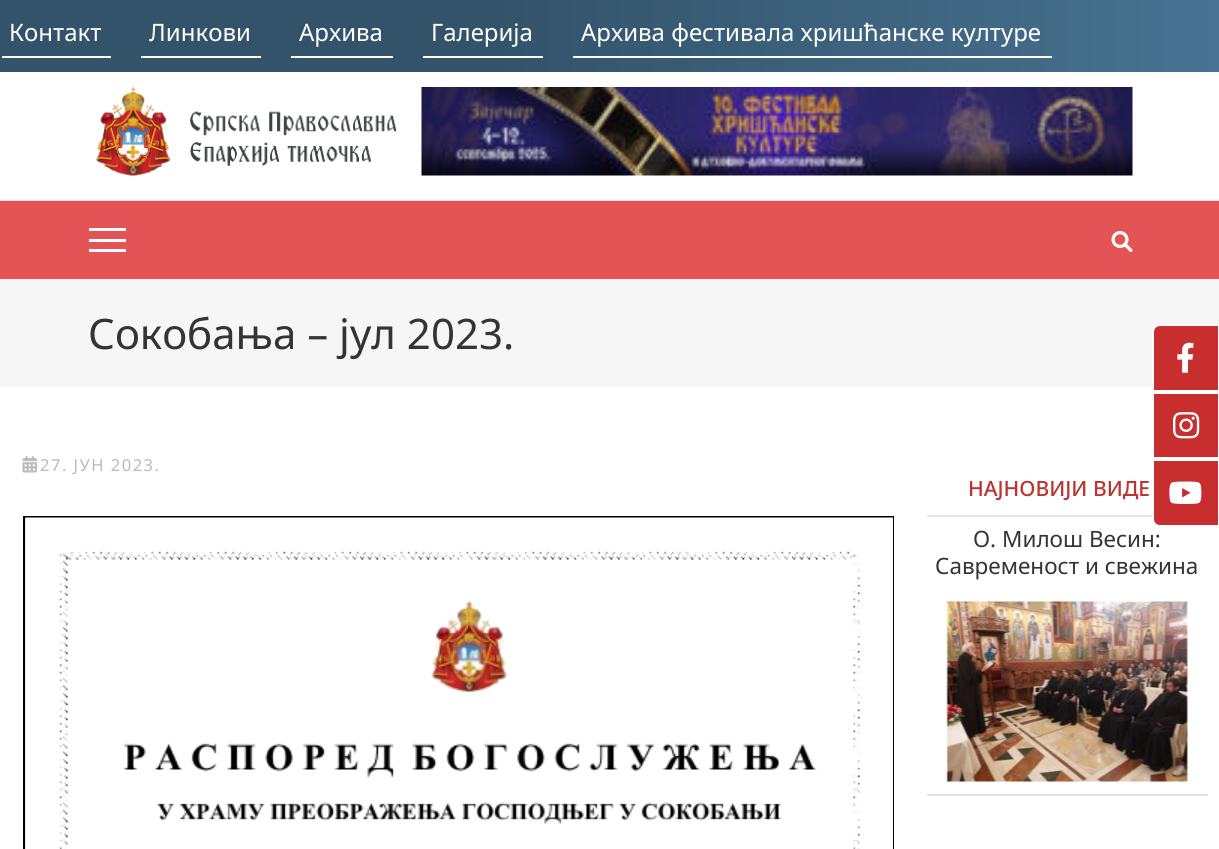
#include <cairo.h>
#include <math.h>
#include <stddef.h>


static void spaced_text(cairo_t *cr, double x, double y, const char *s, double letter, double word) {
    cairo_move_to(cr, x, y);
    while (*s) {
        char ch[5] = {0};
        int n = 0;
        do ch[n++] = *s++; while ((*s & 0xC0) == 0x80);
        cairo_show_text(cr, ch);
        cairo_rel_move_to(cr, letter + word * (*ch == ' '), 0);
    }
}

static void picture(cairo_t *cr, const char *path, double x, double y, double w, double h) {
    cairo_surface_t *image = cairo_image_surface_create_from_png(path);
    cairo_save(cr);
    cairo_set_source_surface(cr, image, x, y);
    cairo_rectangle(cr, x, y, w, h);
    cairo_fill(cr);
    cairo_restore(cr);
    cairo_surface_destroy(image);
}

int main(void) {
    cairo_surface_t *surface = cairo_image_surface_create(CAIRO_FORMAT_RGB24, 1219, 849);
    cairo_t *cr = cairo_create(surface);
    cairo_font_options_t *options = cairo_font_options_create();
    cairo_font_options_set_hint_metrics(options, CAIRO_HINT_METRICS_OFF);
    cairo_font_options_set_hint_style(options, CAIRO_HINT_STYLE_NONE);
    cairo_set_font_options(cr, options);
    cairo_set_miter_limit(cr, 4);
    cairo_pattern_t *gradient;
    cairo_set_source_rgb(cr, 1, 1, 1);
    cairo_paint(cr);
    gradient = cairo_pattern_create_linear(0, 36, 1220, 36);
    cairo_pattern_add_color_stop_rgba(gradient, 0.4, 0.2, 0.325, 0.416, 1);
    cairo_pattern_add_color_stop_rgba(gradient, 1, 0.278, 0.447, 0.569, 1);
    cairo_set_source(cr, gradient);
    cairo_pattern_destroy(gradient);
    cairo_rectangle(cr, 0, 0, 1219, 72);
    cairo_fill(cr);
    cairo_set_source_rgb(cr, 1, 1, 1);
    cairo_rectangle(cr, 2, 56, 109, 2);
    cairo_fill(cr);
    cairo_select_font_face(cr, "Noto Sans", CAIRO_FONT_SLANT_NORMAL, CAIRO_FONT_WEIGHT_NORMAL);
    cairo_set_font_size(cr, 24);
    cairo_move_to(cr, 9, 41);
    cairo_show_text(cr, "Контакт");
    cairo_rectangle(cr, 141, 56, 120, 2);
    cairo_fill(cr);
    cairo_move_to(cr, 149, 41);
    cairo_show_text(cr, "Линкови");
    cairo_rectangle(cr, 291, 56, 102, 2);
    cairo_fill(cr);
    cairo_move_to(cr, 299, 41);
    cairo_show_text(cr, "Архива");
    cairo_rectangle(cr, 423, 56, 120, 2);
    cairo_fill(cr);
    cairo_move_to(cr, 431, 41);
    cairo_show_text(cr, "Галерија");
    cairo_rectangle(cr, 573, 56, 479, 2);
    cairo_fill(cr);
    cairo_move_to(cr, 581, 41);
    cairo_show_text(cr, "Архива фестивала хришћанске културе");
    cairo_set_source_rgb(cr, 0.89, 0.89, 0.89);
    cairo_rectangle(cr, 0, 200, 1219, 1);
    cairo_fill(cr);
    picture(cr, "img1.png", 96, 87, 301, 89);
    picture(cr, "img2.png", 421, 87, 712, 89);
    cairo_set_source_rgb(cr, 0.894, 0.329, 0.341);
    cairo_rectangle(cr, 0, 201, 1219, 78);
    cairo_fill(cr);
    cairo_set_source_rgb(cr, 1, 1, 1);
    cairo_rectangle(cr, 89, 228, 37, 3);
    cairo_fill(cr);
    cairo_rectangle(cr, 89, 239, 37, 3);
    cairo_fill(cr);
    cairo_rectangle(cr, 89, 249, 37, 3);
    cairo_fill(cr);
    picture(cr, "img3.png", 1111, 231, 22, 21);
    cairo_set_source_rgb(cr, 0.961, 0.961, 0.961);
    cairo_rectangle(cr, 0, 279, 1219, 108);
    cairo_fill(cr);
    cairo_set_font_size(cr, 42);
    cairo_set_source_rgb(cr, 0.204, 0.204, 0.204);
    cairo_move_to(cr, 88, 349);
    cairo_show_text(cr, "Сокобања – јул 2023.");
    picture(cr, "img4.png", 22, 456, 15, 17);
    cairo_set_font_size(cr, 16.5);
    cairo_set_source_rgb(cr, 0.733, 0.733, 0.733);
    spaced_text(cr, 40, 471, "27. ЈУН 2023.", 1.5, 0);
    cairo_set_source_rgb(cr, 0.827, 0.827, 0.827);
    cairo_rectangle(cr, 25, 518, 1, 331);
    cairo_fill(cr);
    cairo_rectangle(cr, 24, 517, 869, 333);
    cairo_set_source_rgb(cr, 0, 0, 0);
    cairo_stroke(cr);
    picture(cr, "img5.png", 25, 517, 868, 332);
    cairo_set_source_rgb(cr, 0.89, 0.89, 0.89);
    cairo_rectangle(cr, 927, 515, 225, 2);
    cairo_fill(cr);
    cairo_select_font_face(cr, "Noto Sans Medium", CAIRO_FONT_SLANT_NORMAL, CAIRO_FONT_WEIGHT_NORMAL);
    cairo_set_font_size(cr, 21);
    cairo_set_source_rgb(cr, 0.737, 0.2, 0.188);
    cairo_move_to(cr, 968, 496);
    cairo_show_text(cr, "НАЈНОВИЈИ ВИДЕ");
    cairo_set_source_rgb(cr, 0.89, 0.89, 0.89);
    cairo_rectangle(cr, 927, 794, 281, 2);
    cairo_fill(cr);
    cairo_select_font_face(cr, "Noto Sans", CAIRO_FONT_SLANT_NORMAL, CAIRO_FONT_WEIGHT_NORMAL);
    cairo_set_font_size(cr, 22.5);
    cairo_set_source_rgb(cr, 0.204, 0.204, 0.204);
    cairo_move_to(cr, 973, 547);
    cairo_show_text(cr, "О. Милош Весин:");
    cairo_move_to(cr, 935, 574);
    cairo_show_text(cr, "Савременост и свежина");
    picture(cr, "img6.png", 946, 601, 242, 181);
    cairo_set_source_rgb(cr, 0.78, 0.18, 0.176);
    cairo_new_path(cr);
    cairo_move_to(cr, 1160, 325);
    cairo_line_to(cr, 1219, 325);
    cairo_line_to(cr, 1219, 391);
    cairo_line_to(cr, 1153, 391);
    cairo_line_to(cr, 1153, 332);
    cairo_curve_to(cr, 1153, 328, 1156, 325, 1160, 325);
    cairo_close_path(cr);
    cairo_fill_preserve(cr);
    cairo_set_source_rgb(cr, 1, 1, 1);
    cairo_stroke(cr);
    picture(cr, "img7.png", 1177, 342, 17, 31);
    cairo_set_source_rgb(cr, 0.78, 0.18, 0.176);
    cairo_rectangle(cr, 1154, 394, 64, 63);
    cairo_fill(cr);
    picture(cr, "img8.png", 1173, 412, 27, 27);
    cairo_new_path(cr);
    cairo_move_to(cr, 1153, 460);
    cairo_line_to(cr, 1219, 460);
    cairo_line_to(cr, 1219, 526);
    cairo_line_to(cr, 1160, 526);
    cairo_curve_to(cr, 1156, 526, 1153, 523, 1153, 519);
    cairo_close_path(cr);
    cairo_fill_preserve(cr);
    cairo_set_source_rgb(cr, 1, 1, 1);
    cairo_stroke(cr);
    picture(cr, "img9.png", 1169, 481, 33, 23);
    cairo_surface_write_to_png(surface, "page.png");
    cairo_font_options_destroy(options);
    cairo_destroy(cr);
    cairo_surface_destroy(surface);
    return 0;
}
